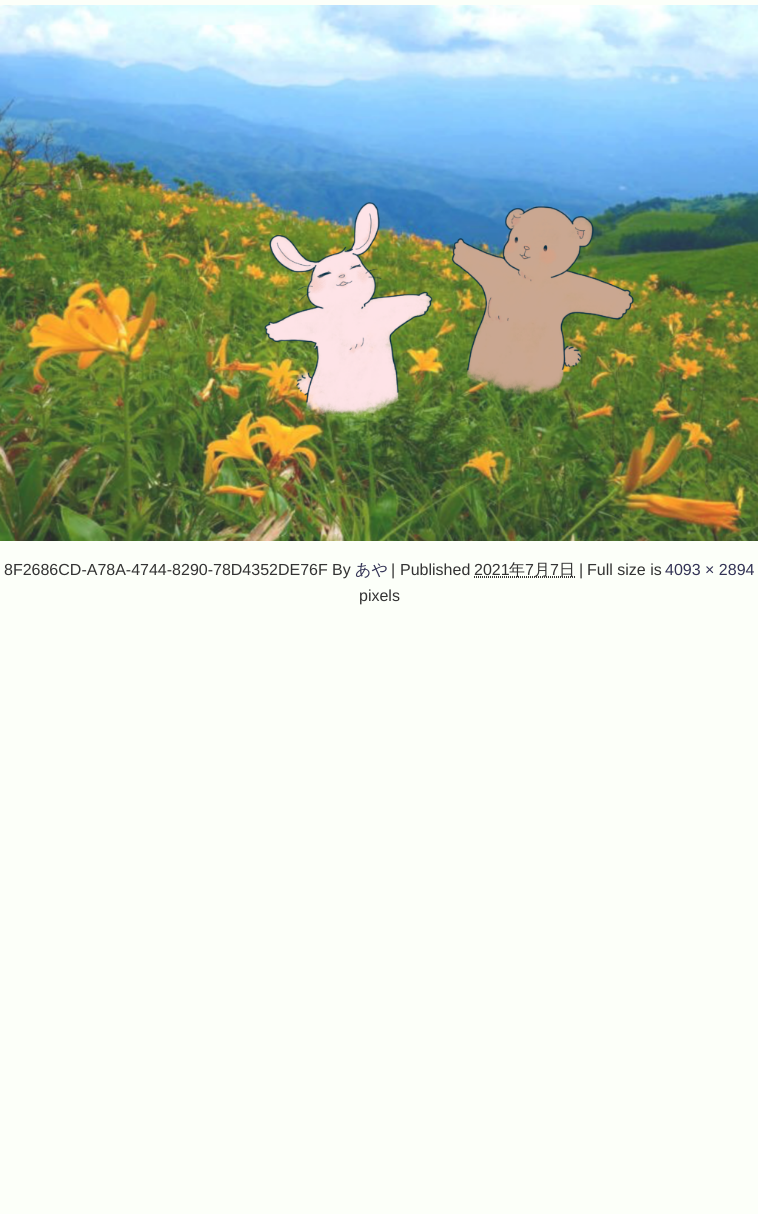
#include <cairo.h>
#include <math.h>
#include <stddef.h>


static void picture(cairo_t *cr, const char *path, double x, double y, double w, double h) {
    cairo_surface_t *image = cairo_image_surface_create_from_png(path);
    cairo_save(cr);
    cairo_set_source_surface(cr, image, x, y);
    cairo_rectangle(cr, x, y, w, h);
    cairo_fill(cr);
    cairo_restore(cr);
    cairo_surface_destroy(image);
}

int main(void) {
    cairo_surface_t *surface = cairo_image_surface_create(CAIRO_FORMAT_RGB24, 758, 1214);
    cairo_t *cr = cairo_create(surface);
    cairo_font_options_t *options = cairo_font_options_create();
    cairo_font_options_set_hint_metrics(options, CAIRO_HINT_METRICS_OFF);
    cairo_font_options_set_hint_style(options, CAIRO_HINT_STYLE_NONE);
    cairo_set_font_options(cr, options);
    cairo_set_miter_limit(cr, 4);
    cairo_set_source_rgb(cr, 0.988, 1, 0.976);
    cairo_paint(cr);
    picture(cr, "img1.png", 0, 5, 758, 536);
    cairo_select_font_face(cr, "Liberation Sans", CAIRO_FONT_SLANT_NORMAL, CAIRO_FONT_WEIGHT_NORMAL);
    cairo_set_font_size(cr, 16);
    cairo_set_source_rgb(cr, 0.2, 0.2, 0.2);
    cairo_move_to(cr, 4, 575);
    cairo_show_text(cr, "8F2686CD-A78A-4744-8290-78D4352DE76F");
    cairo_move_to(cr, 332, 575);
    cairo_show_text(cr, "By");
    cairo_select_font_face(cr, "WenQuanYi Zen Hei Medium", CAIRO_FONT_SLANT_NORMAL, CAIRO_FONT_WEIGHT_NORMAL);
    cairo_set_source_rgb(cr, 0.2, 0.2, 0.333);
    cairo_move_to(cr, 355, 575);
    cairo_show_text(cr, "あや");
    cairo_select_font_face(cr, "Liberation Sans", CAIRO_FONT_SLANT_NORMAL, CAIRO_FONT_WEIGHT_NORMAL);
    cairo_set_source_rgb(cr, 0.2, 0.2, 0.2);
    cairo_move_to(cr, 391, 575);
    cairo_show_text(cr, "|");
    cairo_move_to(cr, 400, 575);
    cairo_show_text(cr, "Published");
    cairo_move_to(cr, 474, 575);
    cairo_show_text(cr, "2021");
    cairo_new_path(cr);
    cairo_move_to(cr, 474, 576.5);
    cairo_line_to(cr, 575.5, 576.5);
    cairo_set_line_width(cr, 1);
    cairo_set_dash(cr, (double[]){1, 1}, 2, 0);
    cairo_stroke(cr);
    cairo_select_font_face(cr, "WenQuanYi Zen Hei Medium", CAIRO_FONT_SLANT_NORMAL, CAIRO_FONT_WEIGHT_NORMAL);
    cairo_move_to(cr, 509, 575);
    cairo_show_text(cr, "年");
    cairo_select_font_face(cr, "Liberation Sans", CAIRO_FONT_SLANT_NORMAL, CAIRO_FONT_WEIGHT_NORMAL);
    cairo_move_to(cr, 525, 575);
    cairo_show_text(cr, "7");
    cairo_new_path(cr);
    cairo_move_to(cr, 474, 577.5);
    cairo_line_to(cr, 575, 577.5);
    cairo_stroke(cr);
    cairo_select_font_face(cr, "WenQuanYi Zen Hei Medium", CAIRO_FONT_SLANT_NORMAL, CAIRO_FONT_WEIGHT_NORMAL);
    cairo_move_to(cr, 534, 575);
    cairo_show_text(cr, "月");
    cairo_select_font_face(cr, "Liberation Sans", CAIRO_FONT_SLANT_NORMAL, CAIRO_FONT_WEIGHT_NORMAL);
    cairo_move_to(cr, 550, 575);
    cairo_show_text(cr, "7");
    cairo_select_font_face(cr, "WenQuanYi Zen Hei Medium", CAIRO_FONT_SLANT_NORMAL, CAIRO_FONT_WEIGHT_NORMAL);
    cairo_move_to(cr, 559, 575);
    cairo_show_text(cr, "日");
    cairo_select_font_face(cr, "Liberation Sans", CAIRO_FONT_SLANT_NORMAL, CAIRO_FONT_WEIGHT_NORMAL);
    cairo_move_to(cr, 579, 575);
    cairo_show_text(cr, "|");
    cairo_move_to(cr, 587, 575);
    cairo_show_text(cr, "Full size is");
    cairo_set_source_rgb(cr, 0.2, 0.2, 0.333);
    cairo_move_to(cr, 665, 575);
    cairo_show_text(cr, "4093 × 2894");
    cairo_set_source_rgb(cr, 0.2, 0.2, 0.2);
    cairo_move_to(cr, 359, 601);
    cairo_show_text(cr, "pixels");
    cairo_surface_write_to_png(surface, "page.png");
    cairo_font_options_destroy(options);
    cairo_destroy(cr);
    cairo_surface_destroy(surface);
    return 0;
}
